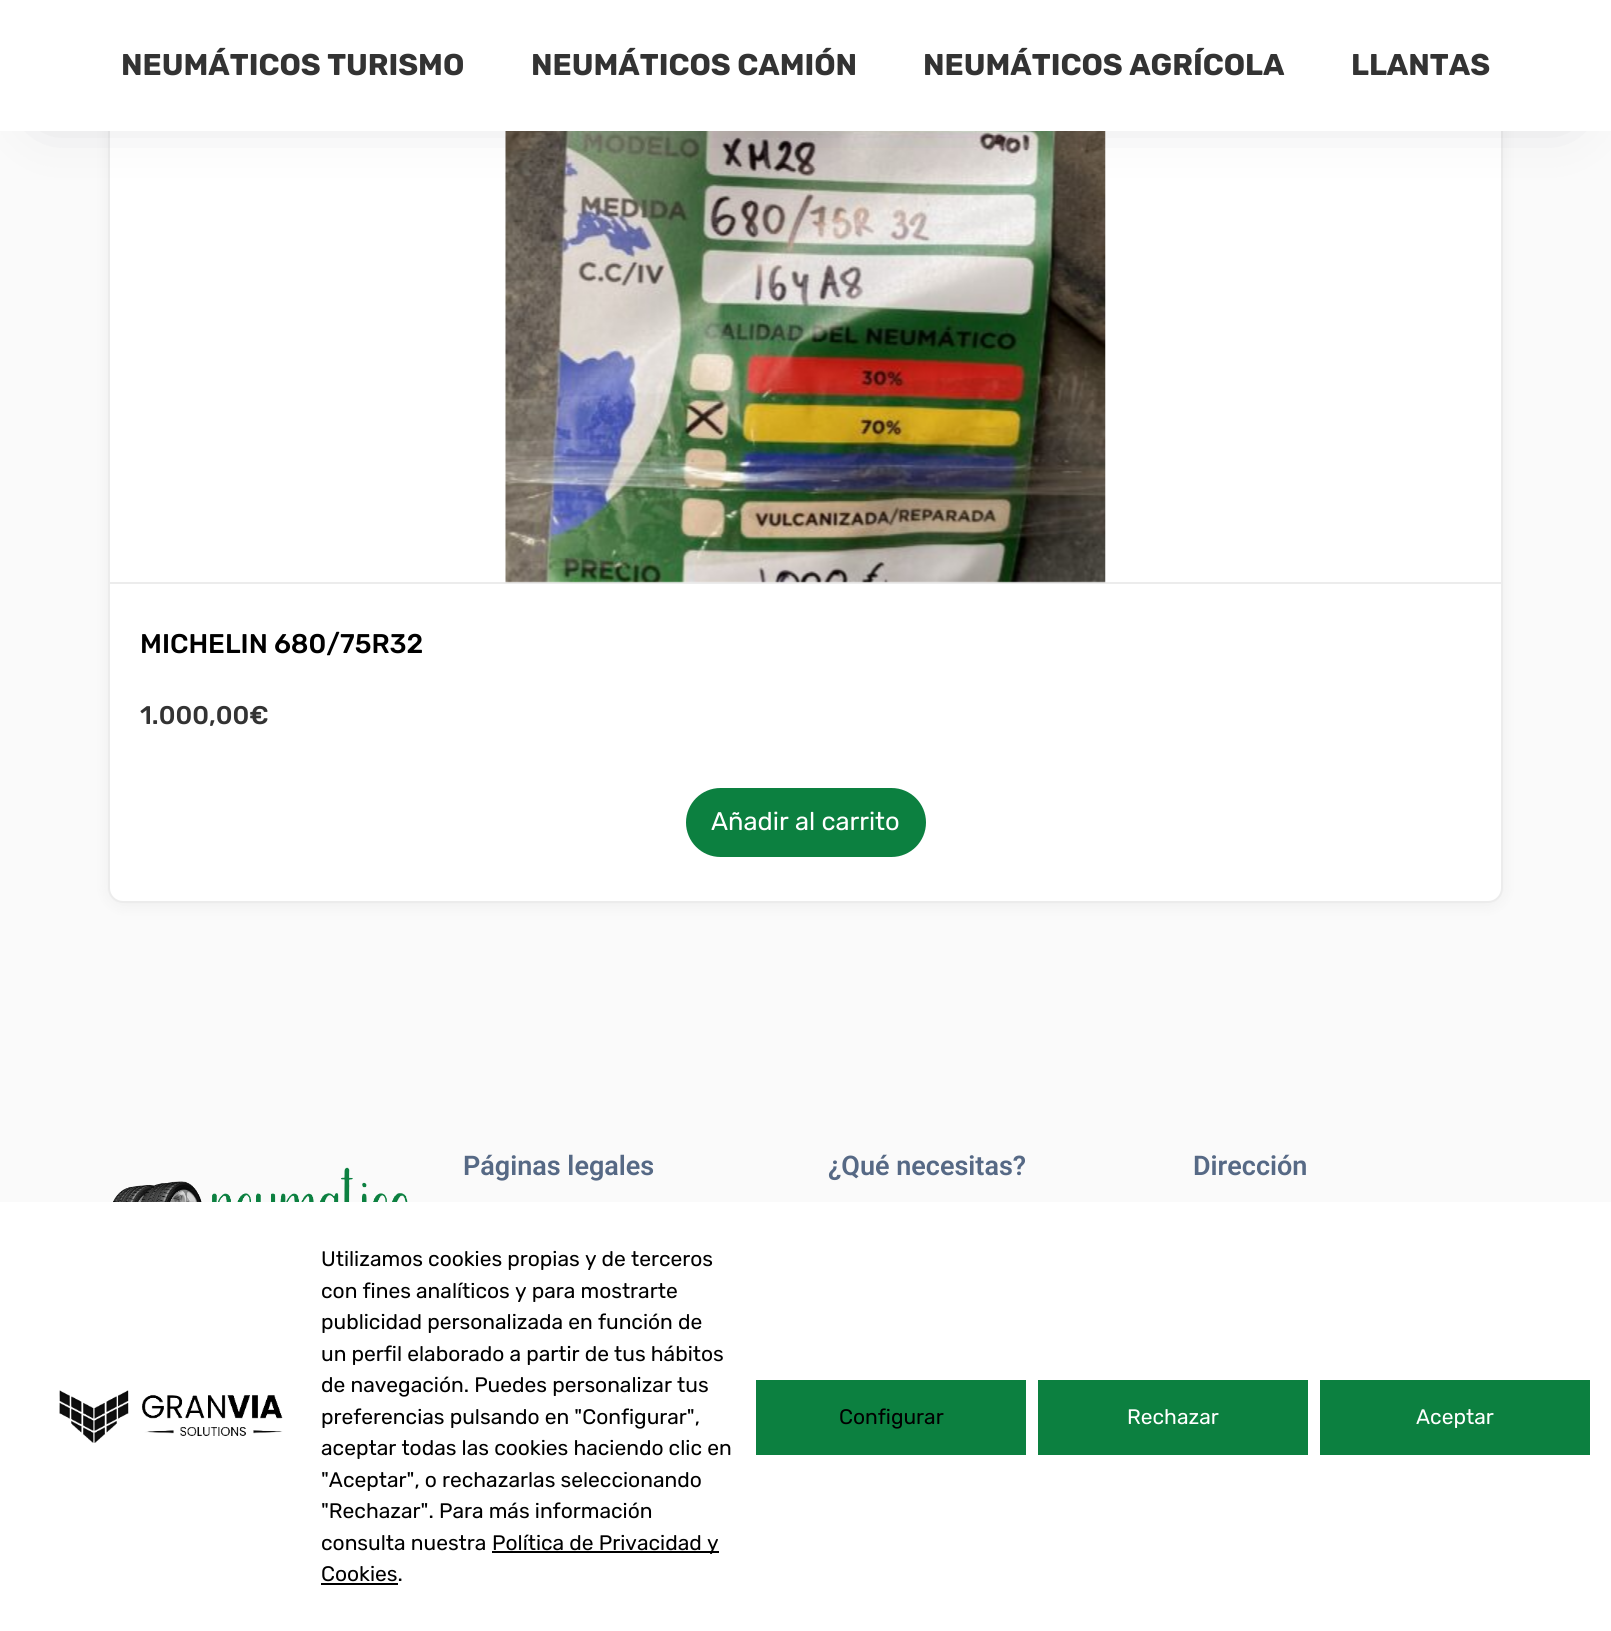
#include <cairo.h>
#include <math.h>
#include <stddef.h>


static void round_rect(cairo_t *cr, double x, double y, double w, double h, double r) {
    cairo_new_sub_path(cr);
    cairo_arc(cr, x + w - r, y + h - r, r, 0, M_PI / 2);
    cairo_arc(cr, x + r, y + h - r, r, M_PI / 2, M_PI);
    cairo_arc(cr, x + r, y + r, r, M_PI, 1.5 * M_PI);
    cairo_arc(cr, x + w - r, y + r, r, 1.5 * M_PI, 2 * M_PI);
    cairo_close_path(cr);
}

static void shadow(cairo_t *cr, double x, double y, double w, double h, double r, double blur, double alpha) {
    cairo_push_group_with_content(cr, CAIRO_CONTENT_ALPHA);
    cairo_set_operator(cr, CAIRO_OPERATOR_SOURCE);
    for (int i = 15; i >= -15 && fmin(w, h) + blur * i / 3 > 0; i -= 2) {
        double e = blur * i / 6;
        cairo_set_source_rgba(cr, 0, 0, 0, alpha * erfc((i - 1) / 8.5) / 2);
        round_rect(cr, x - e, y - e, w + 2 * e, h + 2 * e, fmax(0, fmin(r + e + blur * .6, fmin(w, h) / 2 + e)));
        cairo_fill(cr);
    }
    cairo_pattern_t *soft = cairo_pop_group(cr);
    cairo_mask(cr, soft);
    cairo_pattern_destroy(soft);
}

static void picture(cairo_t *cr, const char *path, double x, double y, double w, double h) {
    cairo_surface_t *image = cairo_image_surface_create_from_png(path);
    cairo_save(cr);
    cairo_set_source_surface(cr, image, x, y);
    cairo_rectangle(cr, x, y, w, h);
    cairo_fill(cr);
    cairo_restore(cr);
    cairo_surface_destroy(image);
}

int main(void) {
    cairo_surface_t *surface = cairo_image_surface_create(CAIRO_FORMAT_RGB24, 1611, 1631);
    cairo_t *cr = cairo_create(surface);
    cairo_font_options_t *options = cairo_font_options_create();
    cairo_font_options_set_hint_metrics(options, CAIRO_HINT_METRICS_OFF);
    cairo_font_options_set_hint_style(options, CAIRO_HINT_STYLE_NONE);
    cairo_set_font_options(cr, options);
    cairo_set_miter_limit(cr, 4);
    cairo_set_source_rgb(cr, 0.98, 0.98, 0.98);
    cairo_paint(cr);
    cairo_set_source_rgb(cr, 0, 0, 0);
    shadow(cr, 108, -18, 1395, 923, 15, 7.5, 0.05);
    cairo_set_source_rgb(cr, 1, 1, 1);
    round_rect(cr, 109, -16, 1393, 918, 14);
    cairo_fill_preserve(cr);
    cairo_set_source_rgb(cr, 0.922, 0.922, 0.922);
    cairo_stroke(cr);
    cairo_rectangle(cr, 110, 582, 1392, 2);
    cairo_fill(cr);
    picture(cr, "img1.png", 505, 131, 601, 452);
    cairo_set_source_rgb(cr, 0.137, 0.149, 0.227);
    shadow(cr, 45, 72, 1521, 41, 0, 30, 0.21);
    cairo_set_source_rgb(cr, 1, 1, 1);
    cairo_rectangle(cr, 0, 0, 1611, 131);
    cairo_fill(cr);
    cairo_select_font_face(cr, "Rubik", CAIRO_FONT_SLANT_NORMAL, CAIRO_FONT_WEIGHT_BOLD);
    cairo_set_font_size(cr, 30);
    cairo_set_source_rgb(cr, 0.2, 0.2, 0.2);
    cairo_move_to(cr, 121, 75);
    cairo_show_text(cr, "NEUMÁTICOS TURISMO");
    cairo_move_to(cr, 531, 75);
    cairo_show_text(cr, "NEUMÁTICOS CAMIÓN");
    cairo_move_to(cr, 923, 75);
    cairo_show_text(cr, "NEUMÁTICOS AGRÍCOLA");
    cairo_move_to(cr, 1351, 75);
    cairo_show_text(cr, "LLANTAS");
    cairo_select_font_face(cr, "Rubik Light", CAIRO_FONT_SLANT_NORMAL, CAIRO_FONT_WEIGHT_NORMAL);
    cairo_set_font_size(cr, 27);
    cairo_set_source_rgb(cr, 0, 0, 0);
    cairo_move_to(cr, 140, 653);
    cairo_show_text(cr, "MICHELIN 680/75R32");
    cairo_set_font_size(cr, 25.5);
    cairo_set_source_rgb(cr, 0.2, 0.2, 0.2);
    cairo_move_to(cr, 140, 724);
    cairo_show_text(cr, "1.000,00€");
    cairo_set_source_rgb(cr, 0.047, 0.502, 0.251);
    round_rect(cr, 686, 788, 240, 69, 34.5);
    cairo_fill(cr);
    cairo_select_font_face(cr, "Rubik", CAIRO_FONT_SLANT_NORMAL, CAIRO_FONT_WEIGHT_NORMAL);
    cairo_set_source_rgb(cr, 1, 1, 1);
    cairo_move_to(cr, 711, 830);
    cairo_show_text(cr, "Añadir al carrito");
    picture(cr, "img2.png", 113, 1167, 295, 35);
    cairo_select_font_face(cr, "Roboto SemiBold", CAIRO_FONT_SLANT_NORMAL, CAIRO_FONT_WEIGHT_NORMAL);
    cairo_set_font_size(cr, 27);
    cairo_set_source_rgb(cr, 0.337, 0.412, 0.522);
    cairo_move_to(cr, 463, 1175);
    cairo_show_text(cr, "Páginas legales");
    cairo_move_to(cr, 828, 1175);
    cairo_show_text(cr, "¿Qué necesitas?");
    cairo_move_to(cr, 1193, 1175);
    cairo_show_text(cr, "Dirección");
    cairo_set_source_rgb(cr, 1, 1, 1);
    cairo_rectangle(cr, 0, 1202, 1611, 429);
    cairo_fill(cr);
    picture(cr, "img3.png", 59, 1390, 224, 53);
    cairo_select_font_face(cr, "Rubik", CAIRO_FONT_SLANT_NORMAL, CAIRO_FONT_WEIGHT_NORMAL);
    cairo_set_font_size(cr, 21);
    cairo_set_source_rgb(cr, 0, 0, 0);
    cairo_move_to(cr, 321, 1266);
    cairo_show_text(cr, "Utilizamos cookies propias y de terceros");
    cairo_move_to(cr, 321, 1298);
    cairo_show_text(cr, "con fines analíticos y para mostrarte");
    cairo_move_to(cr, 321, 1329);
    cairo_show_text(cr, "publicidad personalizada en función de");
    cairo_move_to(cr, 321, 1361);
    cairo_show_text(cr, "un perfil elaborado a partir de tus hábitos");
    cairo_move_to(cr, 321, 1392);
    cairo_show_text(cr, "de navegación. Puedes personalizar tus");
    cairo_move_to(cr, 321, 1424);
    cairo_show_text(cr, "preferencias pulsando en \"Configurar\",");
    cairo_move_to(cr, 321, 1455);
    cairo_show_text(cr, "aceptar todas las cookies haciendo clic en");
    cairo_move_to(cr, 321, 1487);
    cairo_show_text(cr, "\"Aceptar\", o rechazarlas seleccionando");
    cairo_move_to(cr, 321, 1518);
    cairo_show_text(cr, "\"Rechazar\". Para más información");
    cairo_move_to(cr, 321, 1550);
    cairo_show_text(cr, "consulta nuestra");
    cairo_rectangle(cr, 492, 1551, 227, 2);
    cairo_fill(cr);
    cairo_move_to(cr, 492, 1550);
    cairo_show_text(cr, "Política de Privacidad y");
    cairo_move_to(cr, 321, 1581);
    cairo_show_text(cr, "Cookies.");
    cairo_rectangle(cr, 321, 1583, 77, 2);
    cairo_fill(cr);
    cairo_set_source_rgb(cr, 0.047, 0.502, 0.251);
    cairo_rectangle(cr, 756, 1380, 270, 75);
    cairo_fill(cr);
    cairo_set_source_rgb(cr, 0, 0, 0);
    cairo_move_to(cr, 839, 1424);
    cairo_show_text(cr, "Configurar");
    cairo_set_source_rgb(cr, 0.047, 0.502, 0.251);
    cairo_rectangle(cr, 1038, 1380, 270, 75);
    cairo_fill(cr);
    cairo_set_source_rgb(cr, 1, 1, 1);
    cairo_move_to(cr, 1127, 1424);
    cairo_show_text(cr, "Rechazar");
    cairo_set_source_rgb(cr, 0.047, 0.502, 0.251);
    cairo_rectangle(cr, 1320, 1380, 270, 75);
    cairo_fill(cr);
    cairo_set_source_rgb(cr, 1, 1, 1);
    cairo_move_to(cr, 1416, 1424);
    cairo_show_text(cr, "Aceptar");
    cairo_surface_write_to_png(surface, "page.png");
    cairo_font_options_destroy(options);
    cairo_destroy(cr);
    cairo_surface_destroy(surface);
    return 0;
}
